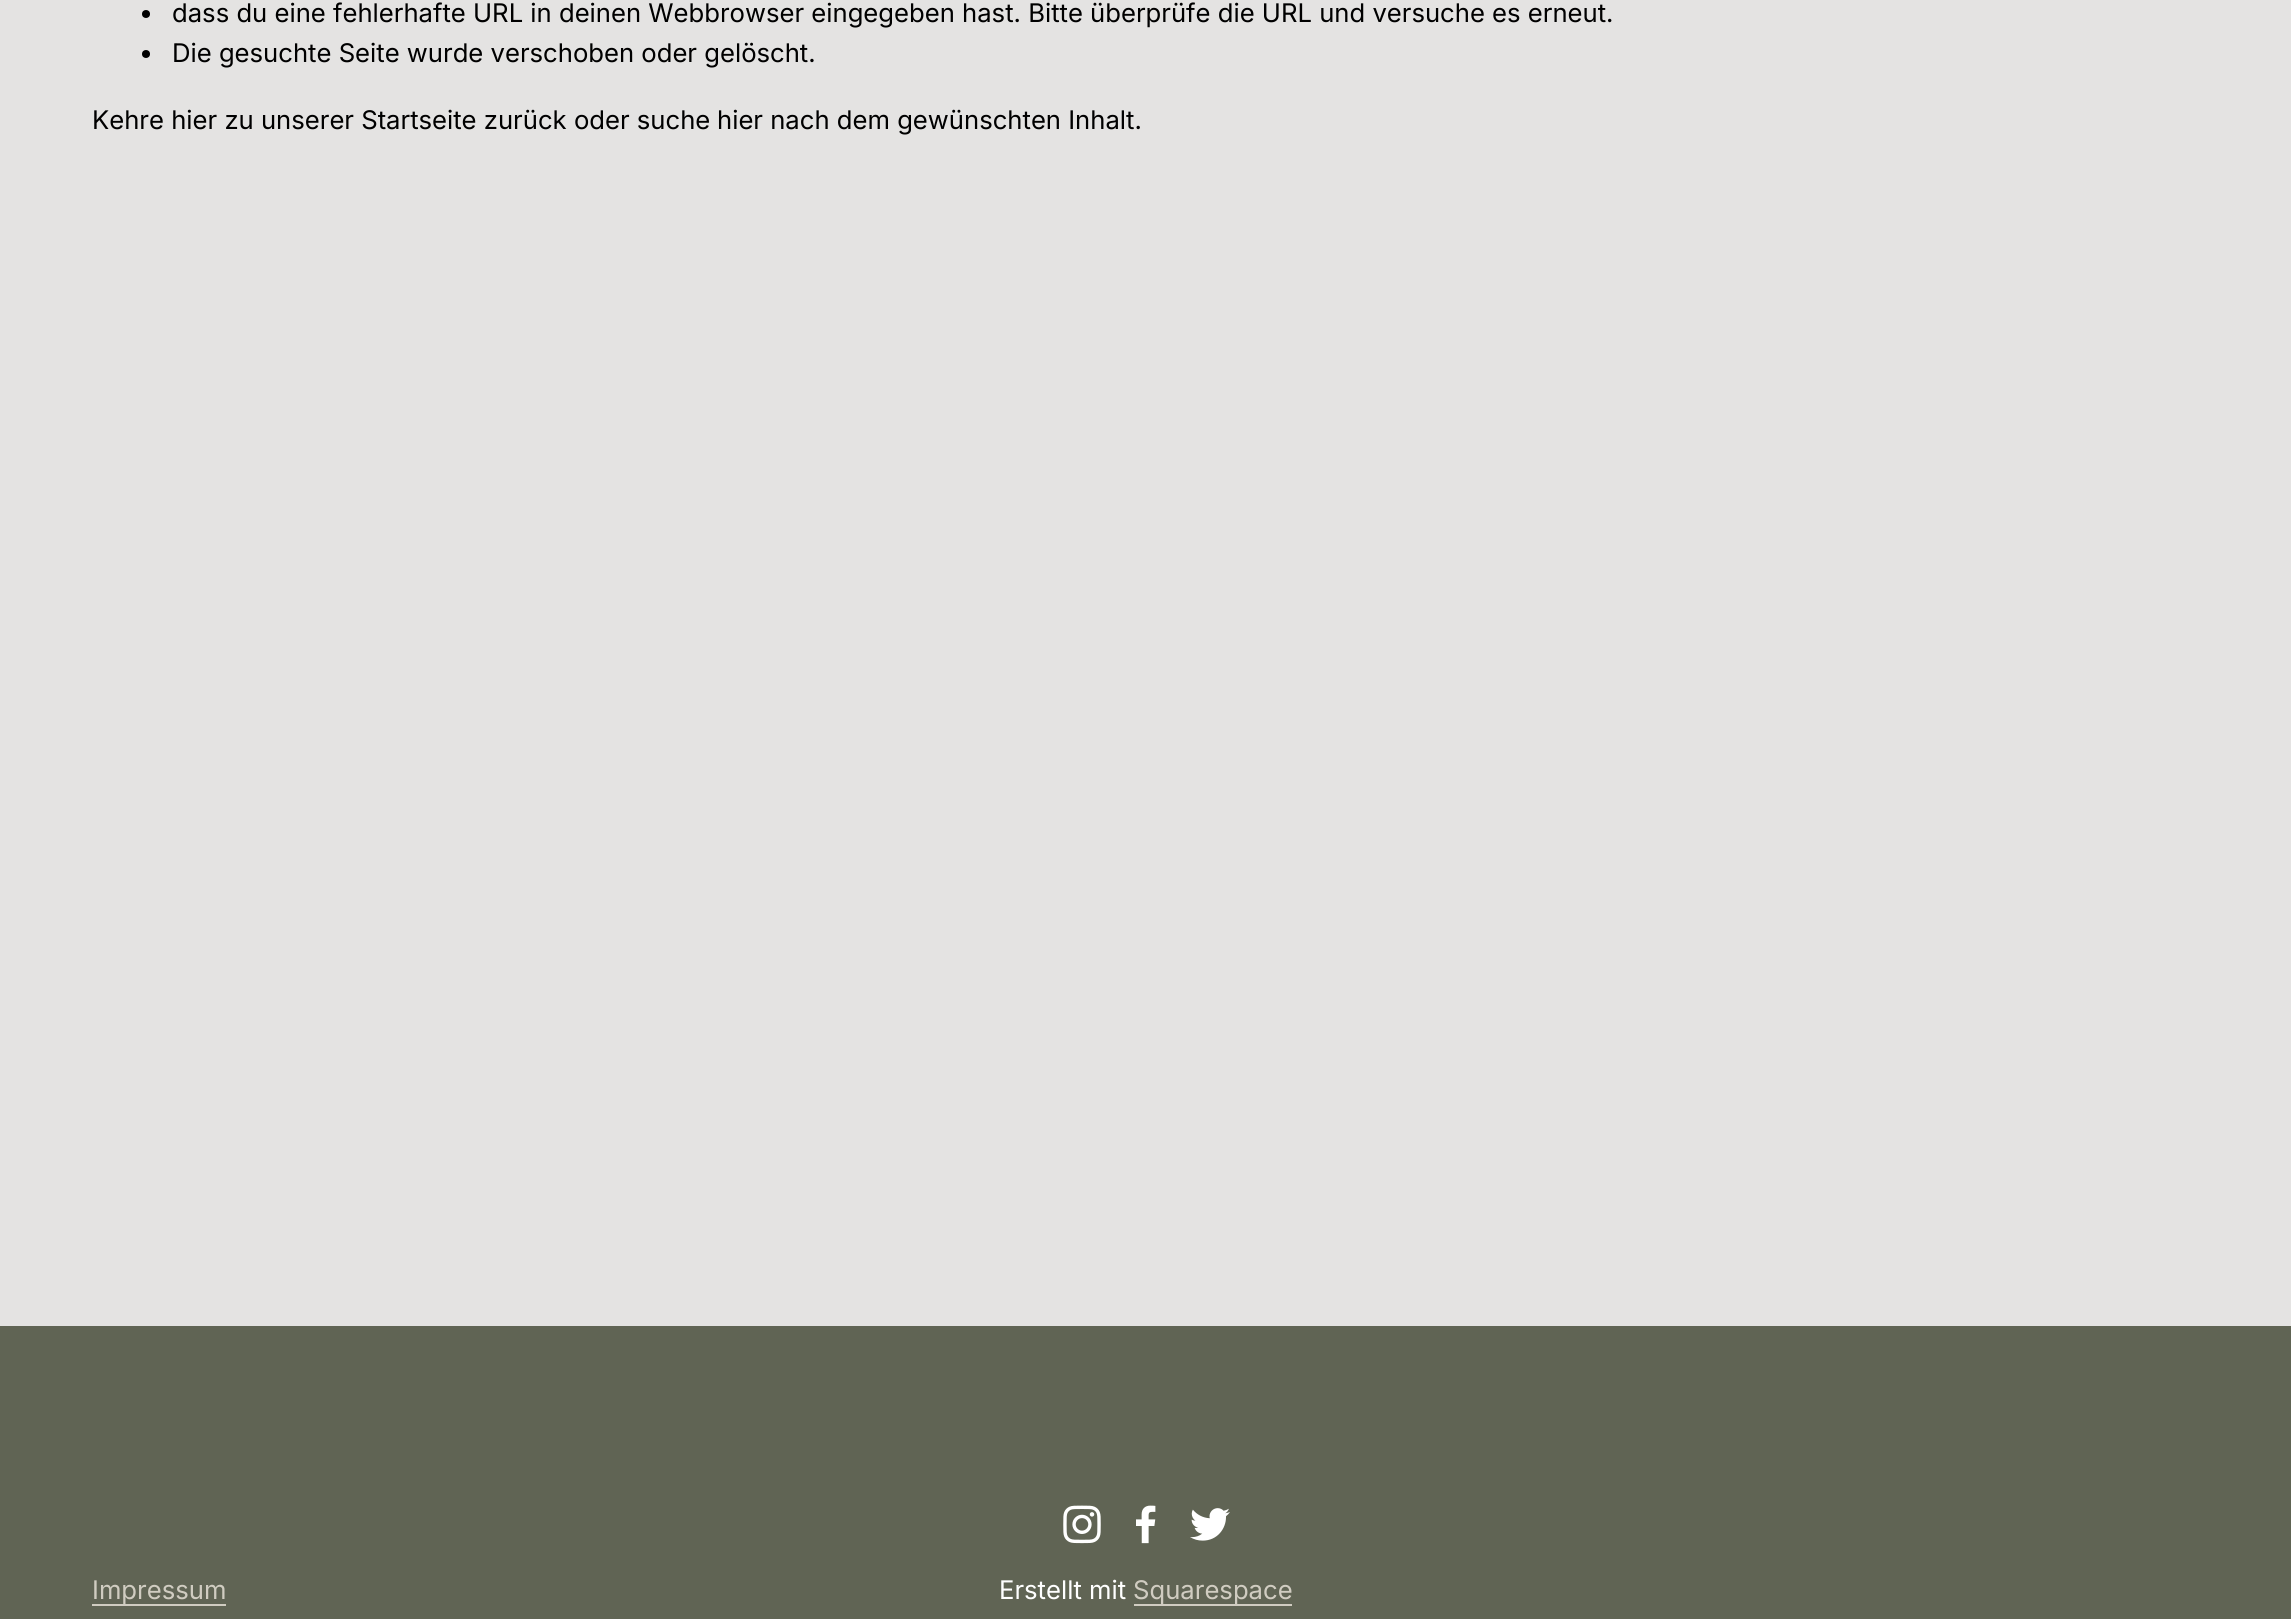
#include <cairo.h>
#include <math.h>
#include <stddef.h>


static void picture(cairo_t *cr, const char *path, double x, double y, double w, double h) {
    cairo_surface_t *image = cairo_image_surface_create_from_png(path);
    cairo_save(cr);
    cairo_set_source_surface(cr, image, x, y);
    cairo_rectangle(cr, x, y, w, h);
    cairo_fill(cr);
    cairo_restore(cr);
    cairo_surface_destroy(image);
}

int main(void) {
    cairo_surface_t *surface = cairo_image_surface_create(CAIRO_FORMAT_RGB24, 2291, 1619);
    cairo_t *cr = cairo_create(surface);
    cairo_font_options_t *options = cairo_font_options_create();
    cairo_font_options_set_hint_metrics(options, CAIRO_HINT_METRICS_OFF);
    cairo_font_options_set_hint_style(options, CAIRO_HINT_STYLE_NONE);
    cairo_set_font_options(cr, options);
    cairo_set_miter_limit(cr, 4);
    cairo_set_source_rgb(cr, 0.894, 0.89, 0.886);
    cairo_paint(cr);
    cairo_set_source_rgb(cr, 0, 0, 0);
    cairo_arc(cr, 146, 14, 4, 0, 2 * M_PI);
    cairo_fill(cr);
    cairo_select_font_face(cr, "Inter", CAIRO_FONT_SLANT_NORMAL, CAIRO_FONT_WEIGHT_NORMAL);
    cairo_set_font_size(cr, 25.65);
    cairo_move_to(cr, 172, 22);
    cairo_show_text(cr, "dass du eine fehlerhafte URL in deinen Webbrowser eingegeben hast. Bitte überprüfe die URL und versuche es erneut.");
    cairo_new_path(cr);
    cairo_arc(cr, 146, 54, 4, 0, 2 * M_PI);
    cairo_fill(cr);
    cairo_move_to(cr, 172, 62);
    cairo_show_text(cr, "Die gesuchte Seite wurde verschoben oder gelöscht.");
    cairo_move_to(cr, 92, 129);
    cairo_show_text(cr, "Kehre hier zu unserer Startseite zurück oder suche");
    cairo_move_to(cr, 717, 129);
    cairo_show_text(cr, "hier nach dem gewünschten Inhalt.");
    cairo_set_source_rgb(cr, 0.376, 0.392, 0.329);
    cairo_rectangle(cr, 0, 1326, 2291, 293);
    cairo_fill(cr);
    picture(cr, "img1.png", 1063, 1505, 38, 39);
    picture(cr, "img2.png", 1136, 1505, 20, 39);
    picture(cr, "img3.png", 1190, 1508, 40, 33);
    cairo_set_source_rgb(cr, 0.816, 0.8, 0.757);
    cairo_rectangle(cr, 92, 1604, 134, 2);
    cairo_fill(cr);
    cairo_move_to(cr, 92, 1599);
    cairo_show_text(cr, "Impressum");
    cairo_set_source_rgb(cr, 1, 1, 1);
    cairo_move_to(cr, 999, 1599);
    cairo_show_text(cr, "Erstellt mit");
    cairo_set_source_rgb(cr, 0.816, 0.8, 0.757);
    cairo_rectangle(cr, 1134, 1604, 158, 2);
    cairo_fill(cr);
    cairo_move_to(cr, 1133, 1599);
    cairo_show_text(cr, "Squarespace");
    cairo_surface_write_to_png(surface, "page.png");
    cairo_font_options_destroy(options);
    cairo_destroy(cr);
    cairo_surface_destroy(surface);
    return 0;
}
